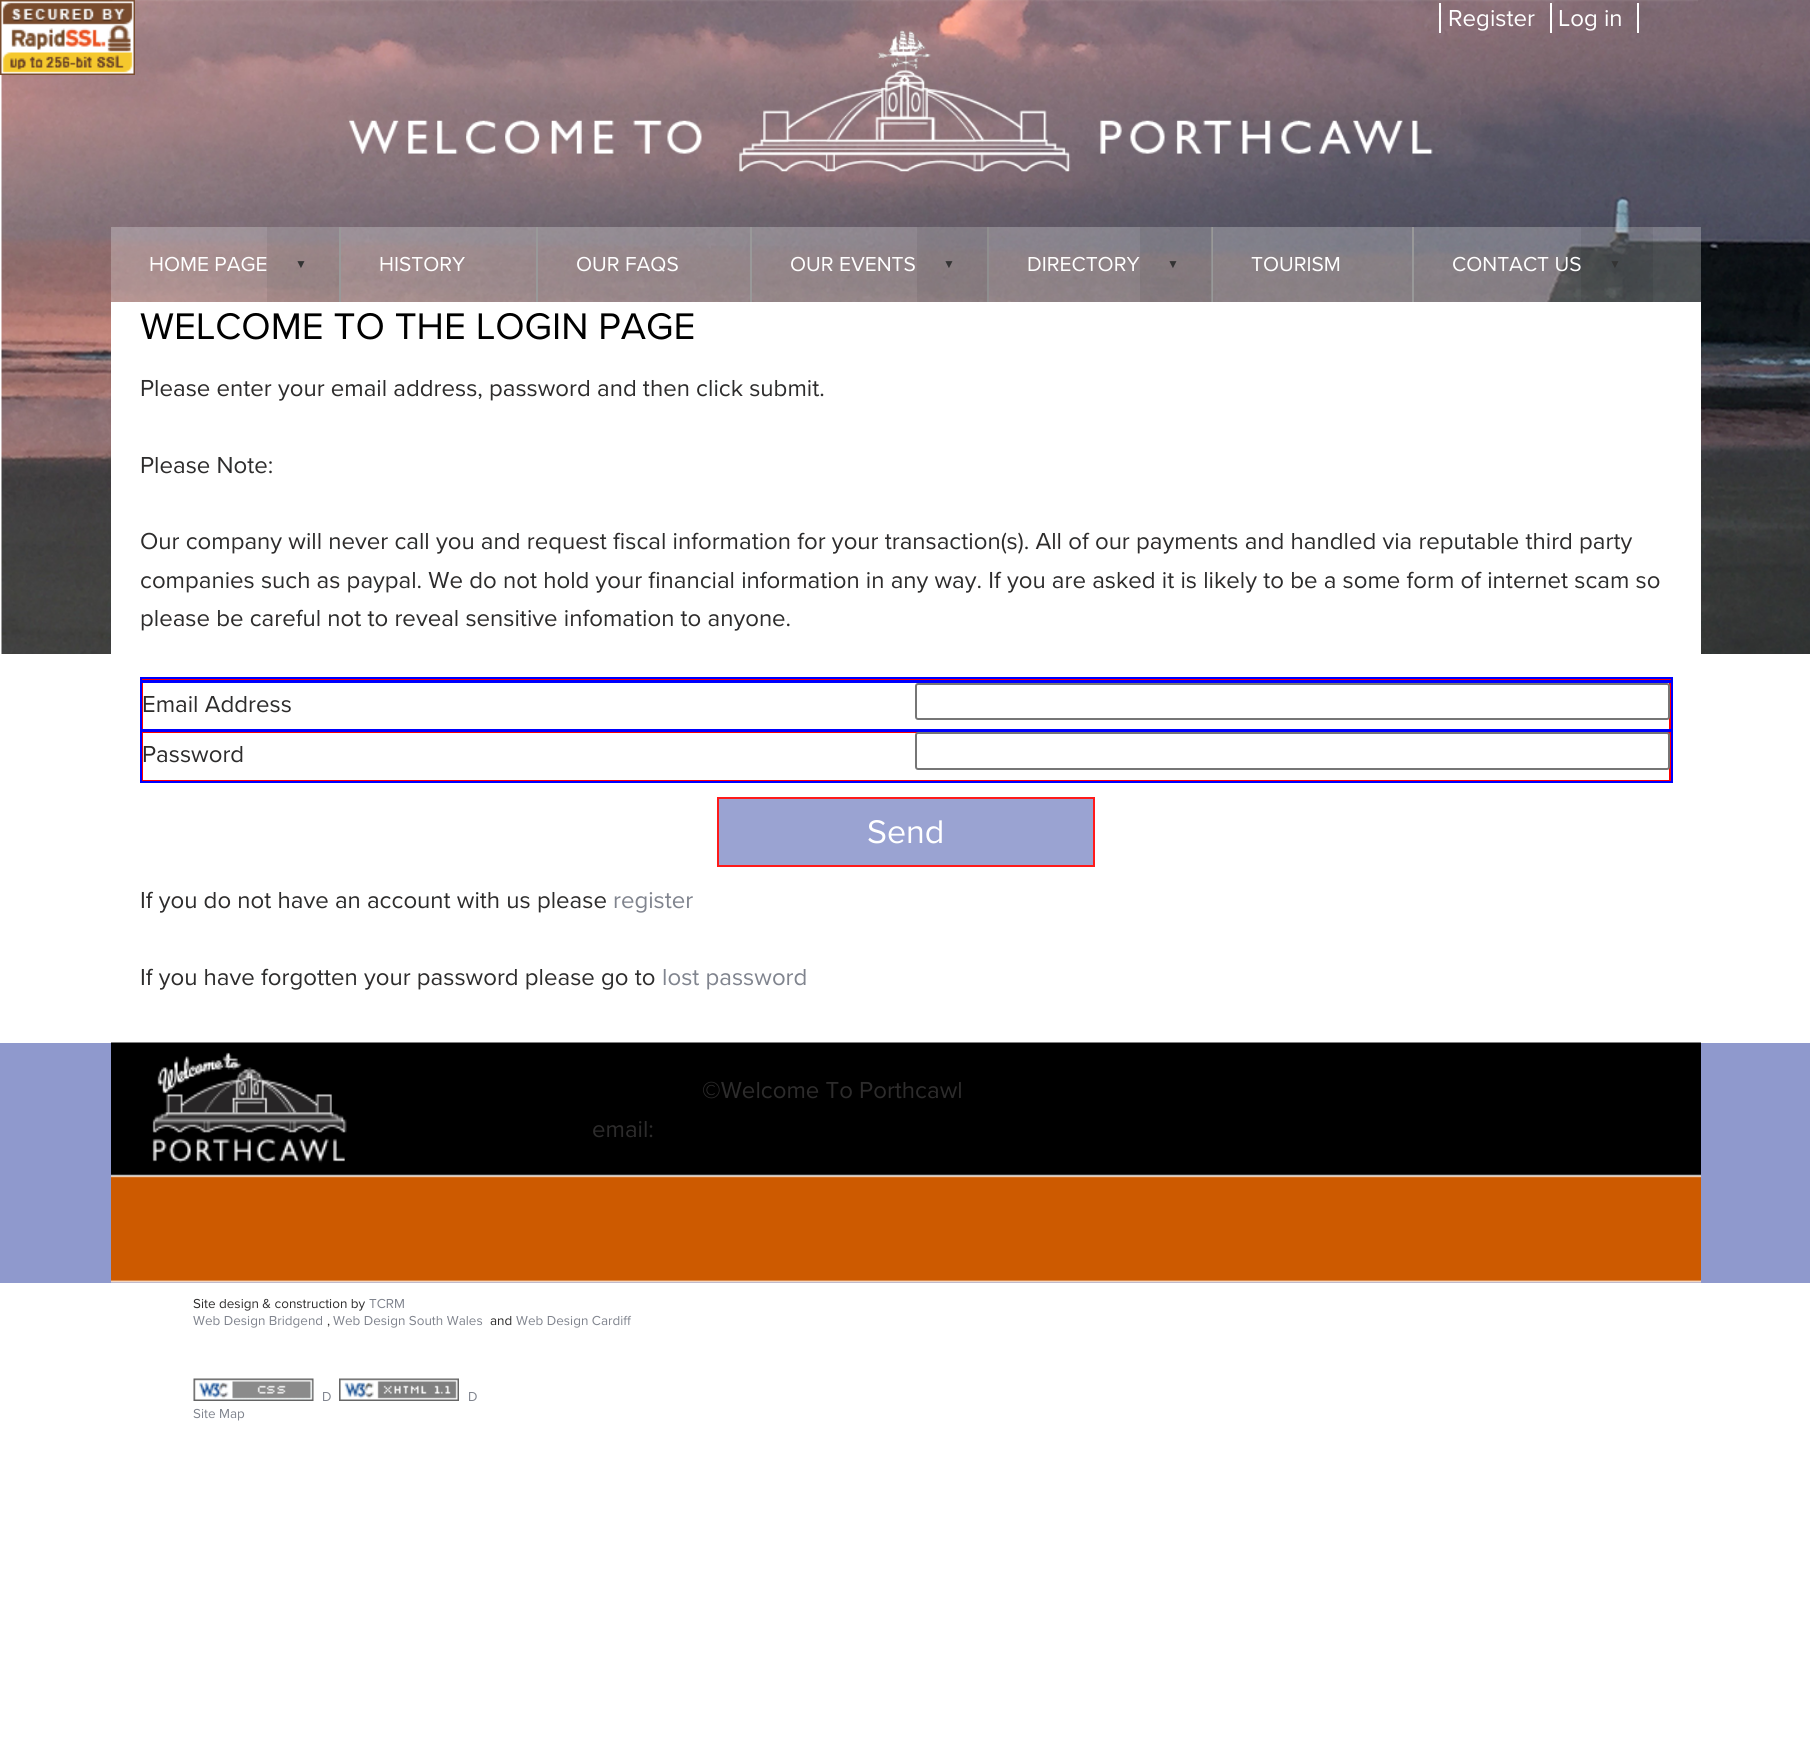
#include <cairo.h>
#include <math.h>
#include <stddef.h>


static void round_rect(cairo_t *cr, double x, double y, double w, double h, double r) {
    cairo_new_sub_path(cr);
    cairo_arc(cr, x + w - r, y + h - r, r, 0, M_PI / 2);
    cairo_arc(cr, x + r, y + h - r, r, M_PI / 2, M_PI);
    cairo_arc(cr, x + r, y + r, r, M_PI, 1.5 * M_PI);
    cairo_arc(cr, x + w - r, y + r, r, 1.5 * M_PI, 2 * M_PI);
    cairo_close_path(cr);
}

static void picture(cairo_t *cr, const char *path, double x, double y, double w, double h) {
    cairo_surface_t *image = cairo_image_surface_create_from_png(path);
    cairo_save(cr);
    cairo_set_source_surface(cr, image, x, y);
    cairo_rectangle(cr, x, y, w, h);
    cairo_fill(cr);
    cairo_restore(cr);
    cairo_surface_destroy(image);
}

int main(void) {
    cairo_surface_t *surface = cairo_image_surface_create(CAIRO_FORMAT_RGB24, 1810, 1743);
    cairo_t *cr = cairo_create(surface);
    cairo_font_options_t *options = cairo_font_options_create();
    cairo_font_options_set_hint_metrics(options, CAIRO_HINT_METRICS_OFF);
    cairo_font_options_set_hint_style(options, CAIRO_HINT_STYLE_NONE);
    cairo_set_font_options(cr, options);
    cairo_set_miter_limit(cr, 4);
    cairo_set_source_rgb(cr, 1, 1, 1);
    cairo_paint(cr);
    picture(cr, "img2.png", 1, 0, 1809, 654);
    picture(cr, "img1.png", 0, 0, 135, 75);
    picture(cr, "img3.png", 112, 0, 1586, 172);
    cairo_set_source_rgb(cr, 1, 1, 1);
    cairo_rectangle(cr, 1439, 3, 2, 30);
    cairo_fill(cr);
    cairo_select_font_face(cr, "Proxima Nova", CAIRO_FONT_SLANT_NORMAL, CAIRO_FONT_WEIGHT_NORMAL);
    cairo_set_font_size(cr, 24);
    cairo_move_to(cr, 1448, 26);
    cairo_show_text(cr, "Register");
    cairo_rectangle(cr, 1550, 3, 2, 30);
    cairo_fill(cr);
    cairo_move_to(cr, 1558, 26);
    cairo_show_text(cr, "Log in");
    cairo_rectangle(cr, 1637, 3, 2, 30);
    cairo_fill(cr);
    cairo_set_source_rgba(cr, 1, 1, 1, 0.26);
    cairo_rectangle(cr, 111, 227, 1590, 75);
    cairo_fill(cr);
    cairo_set_font_size(cr, 21);
    cairo_set_source_rgb(cr, 1, 1, 1);
    cairo_move_to(cr, 149, 271);
    cairo_show_text(cr, "HOME PAGE");
    cairo_set_source_rgba(cr, 0, 0, 0, 0.07);
    cairo_rectangle(cr, 267, 227, 72, 75);
    cairo_fill(cr);
    cairo_select_font_face(cr, "Liberation Sans", CAIRO_FONT_SLANT_NORMAL, CAIRO_FONT_WEIGHT_NORMAL);
    cairo_set_font_size(cr, 12);
    cairo_set_source_rgb(cr, 0.2, 0.2, 0.2);
    cairo_move_to(cr, 295, 268);
    cairo_show_text(cr, "▼");
    cairo_set_source_rgb(cr, 0.6, 0.6, 0.6);
    cairo_rectangle(cr, 339, 227, 2, 75);
    cairo_fill(cr);
    cairo_select_font_face(cr, "Proxima Nova", CAIRO_FONT_SLANT_NORMAL, CAIRO_FONT_WEIGHT_NORMAL);
    cairo_set_font_size(cr, 21);
    cairo_set_source_rgb(cr, 1, 1, 1);
    cairo_move_to(cr, 379, 271);
    cairo_show_text(cr, "HISTORY");
    cairo_set_source_rgb(cr, 0.6, 0.6, 0.6);
    cairo_rectangle(cr, 536, 227, 2, 75);
    cairo_fill(cr);
    cairo_set_source_rgb(cr, 1, 1, 1);
    cairo_move_to(cr, 576, 271);
    cairo_show_text(cr, "OUR FAQS");
    cairo_set_source_rgb(cr, 0.6, 0.6, 0.6);
    cairo_rectangle(cr, 750, 227, 2, 75);
    cairo_fill(cr);
    cairo_set_source_rgb(cr, 1, 1, 1);
    cairo_move_to(cr, 790, 271);
    cairo_show_text(cr, "OUR EVENTS");
    cairo_set_source_rgb(cr, 0.6, 0.6, 0.6);
    cairo_rectangle(cr, 987, 227, 2, 75);
    cairo_fill(cr);
    cairo_set_source_rgba(cr, 0, 0, 0, 0.07);
    cairo_rectangle(cr, 917, 227, 72, 75);
    cairo_fill(cr);
    cairo_select_font_face(cr, "Liberation Sans", CAIRO_FONT_SLANT_NORMAL, CAIRO_FONT_WEIGHT_NORMAL);
    cairo_set_font_size(cr, 12);
    cairo_set_source_rgb(cr, 0.2, 0.2, 0.2);
    cairo_move_to(cr, 943, 268);
    cairo_show_text(cr, "▼");
    cairo_select_font_face(cr, "Proxima Nova", CAIRO_FONT_SLANT_NORMAL, CAIRO_FONT_WEIGHT_NORMAL);
    cairo_set_font_size(cr, 21);
    cairo_set_source_rgb(cr, 1, 1, 1);
    cairo_move_to(cr, 1027, 271);
    cairo_show_text(cr, "DIRECTORY");
    cairo_set_source_rgb(cr, 0.6, 0.6, 0.6);
    cairo_rectangle(cr, 1211, 227, 2, 75);
    cairo_fill(cr);
    cairo_set_source_rgba(cr, 0, 0, 0, 0.07);
    cairo_rectangle(cr, 1140, 227, 72, 75);
    cairo_fill(cr);
    cairo_select_font_face(cr, "Liberation Sans", CAIRO_FONT_SLANT_NORMAL, CAIRO_FONT_WEIGHT_NORMAL);
    cairo_set_font_size(cr, 12);
    cairo_set_source_rgb(cr, 0.2, 0.2, 0.2);
    cairo_move_to(cr, 1167, 268);
    cairo_show_text(cr, "▼");
    cairo_select_font_face(cr, "Proxima Nova", CAIRO_FONT_SLANT_NORMAL, CAIRO_FONT_WEIGHT_NORMAL);
    cairo_set_font_size(cr, 21);
    cairo_set_source_rgb(cr, 1, 1, 1);
    cairo_move_to(cr, 1251, 271);
    cairo_show_text(cr, "TOURISM");
    cairo_set_source_rgb(cr, 0.6, 0.6, 0.6);
    cairo_rectangle(cr, 1412, 227, 2, 75);
    cairo_fill(cr);
    cairo_set_source_rgb(cr, 1, 1, 1);
    cairo_move_to(cr, 1452, 271);
    cairo_show_text(cr, "CONTACT US");
    cairo_set_source_rgba(cr, 0, 0, 0, 0.07);
    cairo_rectangle(cr, 1581, 227, 72, 75);
    cairo_fill(cr);
    cairo_select_font_face(cr, "Liberation Sans", CAIRO_FONT_SLANT_NORMAL, CAIRO_FONT_WEIGHT_NORMAL);
    cairo_set_font_size(cr, 12);
    cairo_set_source_rgb(cr, 0.2, 0.2, 0.2);
    cairo_move_to(cr, 1609, 268);
    cairo_show_text(cr, "▼");
    cairo_set_source_rgb(cr, 1, 1, 1);
    cairo_rectangle(cr, 111, 302, 1590, 352);
    cairo_fill(cr);
    cairo_select_font_face(cr, "Proxima Nova", CAIRO_FONT_SLANT_NORMAL, CAIRO_FONT_WEIGHT_NORMAL);
    cairo_set_font_size(cr, 38.4);
    cairo_set_source_rgb(cr, 0, 0, 0);
    cairo_move_to(cr, 140, 339);
    cairo_show_text(cr, "WELCOME TO THE LOGIN PAGE");
    cairo_set_font_size(cr, 24);
    cairo_set_source_rgb(cr, 0.176, 0.173, 0.173);
    cairo_move_to(cr, 140, 396);
    cairo_show_text(cr, "Please enter your email address, password and then click submit.");
    cairo_move_to(cr, 140, 473);
    cairo_show_text(cr, "Please Note:");
    cairo_move_to(cr, 140, 549);
    cairo_show_text(cr, "Our company will never call you and request fiscal information for your transaction(s). All of our payments and handled via reputable third party");
    cairo_move_to(cr, 140, 588);
    cairo_show_text(cr, "companies such as paypal. We do not hold your financial information in any way. If you are asked it is likely to be a some form of internet scam so");
    cairo_move_to(cr, 140, 626);
    cairo_show_text(cr, "please be careful not to reveal sensitive infomation to anyone.");
    cairo_set_source_rgb(cr, 1, 0, 0);
    cairo_rectangle(cr, 141, 679, 1530, 1);
    cairo_fill(cr);
    cairo_rectangle(cr, 142, 682, 1528, 48);
    cairo_stroke(cr);
    cairo_rectangle(cr, 141, 678, 1531, 4);
    cairo_set_source_rgb(cr, 0, 0, 1);
    cairo_stroke(cr);
    cairo_set_source_rgb(cr, 1, 1, 1);
    round_rect(cr, 916, 684, 753, 35, 2);
    cairo_fill_preserve(cr);
    cairo_set_source_rgb(cr, 0.463, 0.463, 0.463);
    cairo_stroke(cr);
    cairo_rectangle(cr, 142, 732, 1528, 49);
    cairo_set_source_rgb(cr, 1, 0, 0);
    cairo_stroke(cr);
    cairo_rectangle(cr, 141, 681, 1531, 50);
    cairo_set_source_rgb(cr, 0, 0, 1);
    cairo_stroke(cr);
    cairo_set_source_rgb(cr, 0.176, 0.173, 0.173);
    cairo_move_to(cr, 142, 712);
    cairo_show_text(cr, "Email Address");
    cairo_set_source_rgb(cr, 1, 1, 1);
    round_rect(cr, 916, 733, 753, 36, 2);
    cairo_fill_preserve(cr);
    cairo_set_source_rgb(cr, 0.463, 0.463, 0.463);
    cairo_stroke(cr);
    cairo_rectangle(cr, 141, 730, 1531, 52);
    cairo_set_source_rgb(cr, 0, 0, 1);
    cairo_stroke(cr);
    cairo_set_source_rgb(cr, 0.176, 0.173, 0.173);
    cairo_move_to(cr, 142, 762);
    cairo_show_text(cr, "Password");
    cairo_set_source_rgb(cr, 0.604, 0.639, 0.824);
    cairo_rectangle(cr, 718, 798, 376, 68);
    cairo_fill_preserve(cr);
    cairo_set_source_rgb(cr, 1, 0.102, 0.102);
    cairo_stroke(cr);
    cairo_set_font_size(cr, 34);
    cairo_set_source_rgb(cr, 1, 1, 1);
    cairo_move_to(cr, 867, 843);
    cairo_show_text(cr, "Send");
    cairo_set_font_size(cr, 24);
    cairo_set_source_rgb(cr, 0.176, 0.173, 0.173);
    cairo_move_to(cr, 140, 908);
    cairo_show_text(cr, "If you do not have an account with us please");
    cairo_set_source_rgb(cr, 0.502, 0.518, 0.557);
    cairo_move_to(cr, 613, 908);
    cairo_show_text(cr, "register");
    cairo_set_source_rgb(cr, 0.176, 0.173, 0.173);
    cairo_move_to(cr, 140, 985);
    cairo_show_text(cr, "If you have forgotten your password please go to");
    cairo_set_source_rgb(cr, 0.502, 0.518, 0.557);
    cairo_move_to(cr, 662, 985);
    cairo_show_text(cr, "lost password");
    cairo_set_source_rgb(cr, 0.561, 0.6, 0.804);
    cairo_rectangle(cr, 0, 1043, 1810, 240);
    cairo_fill(cr);
    picture(cr, "img4.png", 111, 1042, 1590, 241);
    cairo_set_source_rgb(cr, 0.176, 0.173, 0.173);
    cairo_move_to(cr, 702, 1098);
    cairo_show_text(cr, "©Welcome To Porthcawl");
    cairo_move_to(cr, 592, 1137);
    cairo_show_text(cr, "email:");
    cairo_set_font_size(cr, 13.5);
    cairo_move_to(cr, 193, 1308);
    cairo_show_text(cr, "Site design & construction by");
    cairo_set_source_rgb(cr, 0.502, 0.518, 0.557);
    cairo_move_to(cr, 369, 1308);
    cairo_show_text(cr, "TCRM");
    cairo_move_to(cr, 193, 1325);
    cairo_show_text(cr, "Web Design Bridgend");
    cairo_set_source_rgb(cr, 0.176, 0.173, 0.173);
    cairo_move_to(cr, 327, 1325);
    cairo_show_text(cr, ",");
    cairo_set_source_rgb(cr, 0.502, 0.518, 0.557);
    cairo_move_to(cr, 333, 1325);
    cairo_show_text(cr, "Web Design South Wales");
    cairo_set_source_rgb(cr, 0.176, 0.173, 0.173);
    cairo_move_to(cr, 490, 1325);
    cairo_show_text(cr, "and");
    cairo_set_source_rgb(cr, 0.502, 0.518, 0.557);
    cairo_move_to(cr, 516, 1325);
    cairo_show_text(cr, "Web Design Cardiff");
    picture(cr, "img5.png", 193, 1378, 121, 23);
    cairo_move_to(cr, 322, 1401);
    cairo_show_text(cr, "D");
    picture(cr, "img6.png", 339, 1378, 120, 23);
    cairo_move_to(cr, 468, 1401);
    cairo_show_text(cr, "D");
    cairo_move_to(cr, 193, 1418);
    cairo_show_text(cr, "Site Map");
    cairo_surface_write_to_png(surface, "page.png");
    cairo_font_options_destroy(options);
    cairo_destroy(cr);
    cairo_surface_destroy(surface);
    return 0;
}
